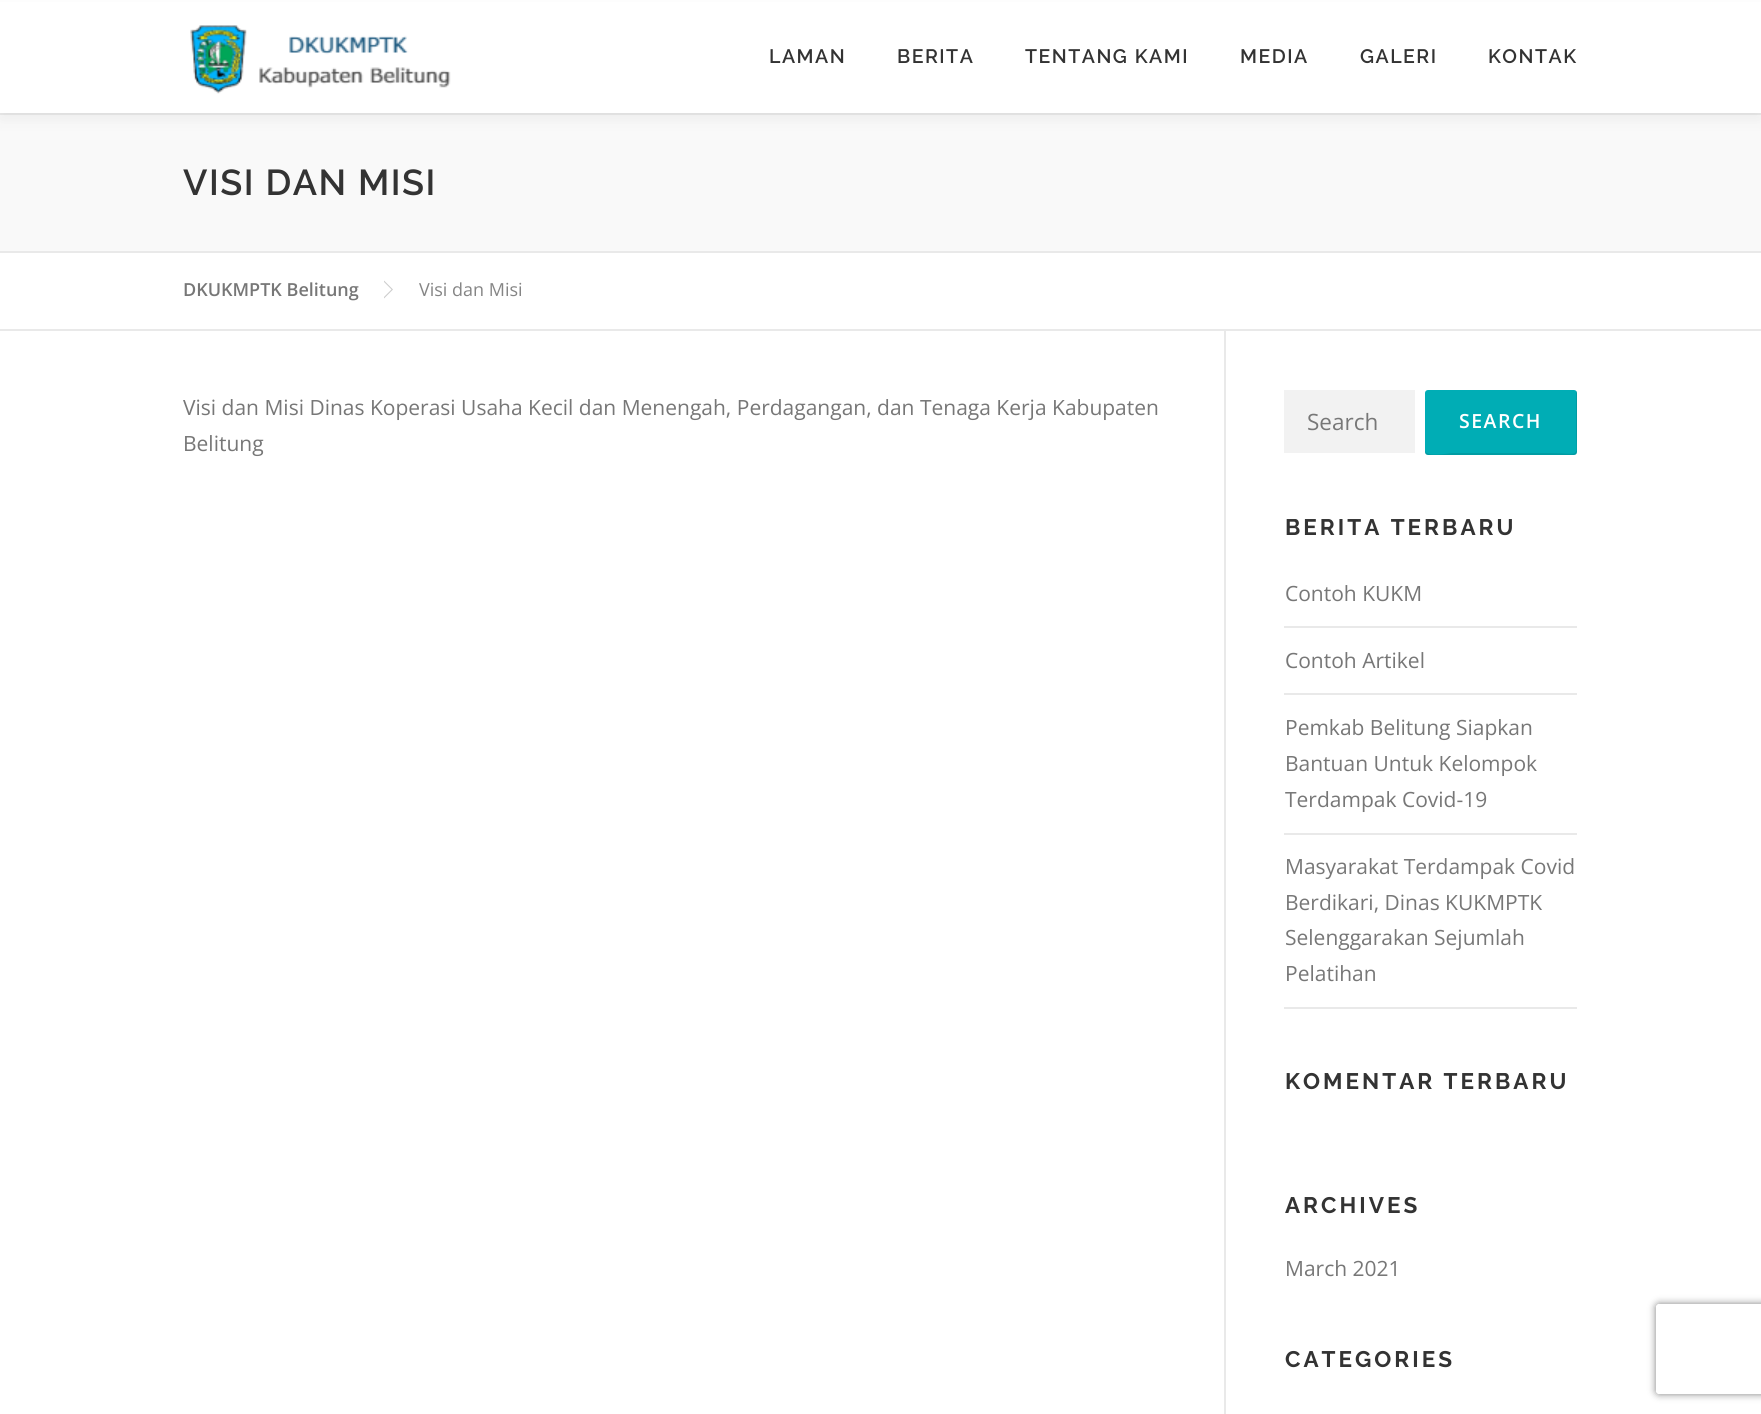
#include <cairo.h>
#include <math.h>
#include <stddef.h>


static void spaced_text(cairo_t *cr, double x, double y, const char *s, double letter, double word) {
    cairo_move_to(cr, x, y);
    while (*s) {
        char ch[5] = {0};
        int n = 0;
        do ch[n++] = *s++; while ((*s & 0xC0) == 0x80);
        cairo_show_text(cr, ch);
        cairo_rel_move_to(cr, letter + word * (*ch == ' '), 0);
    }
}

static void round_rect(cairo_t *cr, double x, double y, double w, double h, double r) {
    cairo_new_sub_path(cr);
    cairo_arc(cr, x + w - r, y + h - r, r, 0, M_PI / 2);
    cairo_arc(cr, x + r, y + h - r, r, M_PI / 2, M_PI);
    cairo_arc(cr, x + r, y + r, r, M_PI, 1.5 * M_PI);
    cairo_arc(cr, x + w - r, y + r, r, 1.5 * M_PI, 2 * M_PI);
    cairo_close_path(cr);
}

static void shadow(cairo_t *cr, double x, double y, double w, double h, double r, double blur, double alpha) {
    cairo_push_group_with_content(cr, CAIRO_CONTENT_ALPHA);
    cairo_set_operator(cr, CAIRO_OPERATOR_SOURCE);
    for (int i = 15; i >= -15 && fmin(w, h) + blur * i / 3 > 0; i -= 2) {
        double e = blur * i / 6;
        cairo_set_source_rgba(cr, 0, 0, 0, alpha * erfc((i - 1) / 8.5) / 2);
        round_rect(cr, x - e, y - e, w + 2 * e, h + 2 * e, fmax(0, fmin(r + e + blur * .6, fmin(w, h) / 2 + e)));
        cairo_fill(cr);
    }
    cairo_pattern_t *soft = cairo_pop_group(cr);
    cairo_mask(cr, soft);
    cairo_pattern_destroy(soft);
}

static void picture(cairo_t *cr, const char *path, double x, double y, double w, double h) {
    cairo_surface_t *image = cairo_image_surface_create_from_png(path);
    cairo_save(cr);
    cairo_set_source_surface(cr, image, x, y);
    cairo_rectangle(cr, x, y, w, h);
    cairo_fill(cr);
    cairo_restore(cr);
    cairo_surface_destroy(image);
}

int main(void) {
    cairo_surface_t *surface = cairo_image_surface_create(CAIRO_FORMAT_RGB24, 1761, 1414);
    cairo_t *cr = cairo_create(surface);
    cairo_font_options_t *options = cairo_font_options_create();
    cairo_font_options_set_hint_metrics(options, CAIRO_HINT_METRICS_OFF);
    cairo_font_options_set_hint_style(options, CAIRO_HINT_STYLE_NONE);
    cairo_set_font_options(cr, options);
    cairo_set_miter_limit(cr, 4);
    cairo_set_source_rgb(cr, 1, 1, 1);
    cairo_paint(cr);
    cairo_set_source_rgb(cr, 0.973, 0.976, 0.976);
    cairo_rectangle(cr, 0, 115, 1761, 136);
    cairo_fill(cr);
    cairo_set_source_rgb(cr, 0.914, 0.914, 0.914);
    cairo_rectangle(cr, 0, 113, 1761, 2);
    cairo_fill(cr);
    cairo_set_source_rgb(cr, 0.196, 0.196, 0.196);
    shadow(cr, 0, 8, 1761, 112, 0, 7.5, 0.06);
    cairo_set_source_rgb(cr, 1, 1, 1);
    cairo_rectangle(cr, 0, 2, 1761, 111);
    cairo_fill(cr);
    picture(cr, "img1.png", 190, 25, 261, 69);
    cairo_select_font_face(cr, "Raleway SemiBold", CAIRO_FONT_SLANT_NORMAL, CAIRO_FONT_WEIGHT_NORMAL);
    cairo_set_font_size(cr, 19.5);
    cairo_set_source_rgb(cr, 0.2, 0.2, 0.2);
    spaced_text(cr, 769, 63, "LAMAN", 1.5, 0);
    spaced_text(cr, 897, 63, "BERITA", 1.5, 0);
    spaced_text(cr, 1025, 63, "TENTANG KAMI", 1.5, 0);
    spaced_text(cr, 1240, 63, "MEDIA", 1.5, 0);
    spaced_text(cr, 1360, 63, "GALERI", 1.5, 0);
    spaced_text(cr, 1488, 63, "KONTAK", 1.5, 0);
    cairo_set_source_rgb(cr, 0.914, 0.914, 0.914);
    cairo_rectangle(cr, 0, 251, 1761, 2);
    cairo_fill(cr);
    cairo_set_font_size(cr, 36);
    cairo_set_source_rgb(cr, 0.2, 0.2, 0.2);
    spaced_text(cr, 183, 195, "VISI DAN MISI", 1.5, 0);
    cairo_set_source_rgb(cr, 0.914, 0.914, 0.914);
    cairo_rectangle(cr, 0, 329, 1761, 2);
    cairo_fill(cr);
    cairo_select_font_face(cr, "Open Sans SemiBold", CAIRO_FONT_SLANT_NORMAL, CAIRO_FONT_WEIGHT_NORMAL);
    cairo_set_font_size(cr, 18);
    cairo_set_source_rgb(cr, 0.467, 0.467, 0.467);
    cairo_move_to(cr, 183, 296);
    cairo_show_text(cr, "DKUKMPTK Belitung");
    cairo_set_source_rgb(cr, 0.8, 0.8, 0.8);
    cairo_new_path(cr);
    cairo_move_to(cr, 384, 298.5);
    cairo_line_to(cr, 384, 280.5);
    cairo_line_to(cr, 393, 289.5);
    cairo_close_path(cr);
    cairo_fill(cr);
    cairo_set_source_rgb(cr, 1, 1, 1);
    cairo_new_path(cr);
    cairo_move_to(cr, 384, 297);
    cairo_line_to(cr, 384, 282);
    cairo_line_to(cr, 391.5, 289.5);
    cairo_close_path(cr);
    cairo_fill(cr);
    cairo_select_font_face(cr, "Open Sans", CAIRO_FONT_SLANT_NORMAL, CAIRO_FONT_WEIGHT_NORMAL);
    cairo_set_source_rgb(cr, 0.522, 0.522, 0.522);
    cairo_move_to(cr, 419, 296);
    cairo_show_text(cr, "Visi dan Misi");
    cairo_set_font_size(cr, 21);
    cairo_set_source_rgb(cr, 0.467, 0.467, 0.467);
    cairo_move_to(cr, 183, 415);
    cairo_show_text(cr, "Visi dan Misi Dinas Koperasi Usaha Kecil dan Menengah, Perdagangan, dan Tenaga Kerja Kabupaten");
    cairo_move_to(cr, 183, 451);
    cairo_show_text(cr, "Belitung");
    cairo_set_source_rgb(cr, 0.914, 0.914, 0.914);
    cairo_rectangle(cr, 1224, 330, 2, 1084);
    cairo_fill(cr);
    cairo_set_source_rgb(cr, 0.949, 0.949, 0.949);
    cairo_rectangle(cr, 1284, 390, 131, 63);
    cairo_fill(cr);
    cairo_set_font_size(cr, 22.5);
    cairo_set_source_rgb(cr, 0.467, 0.467, 0.467);
    cairo_move_to(cr, 1307, 430);
    cairo_show_text(cr, "Search");
    cairo_set_source_rgb(cr, 0, 0.678, 0.71);
    round_rect(cr, 1425, 390, 152, 65, 3);
    cairo_fill(cr);
    cairo_set_source_rgba(cr, 0, 0, 0, 0.1);
    cairo_new_path(cr);
    cairo_move_to(cr, 1425, 450);
    cairo_line_to(cr, 1425, 452);
    cairo_curve_to(cr, 1425, 454, 1426, 455, 1428, 455);
    cairo_line_to(cr, 1574, 455);
    cairo_curve_to(cr, 1576, 455, 1577, 454, 1577, 452);
    cairo_line_to(cr, 1577, 393);
    cairo_curve_to(cr, 1577, 392, 1577, 391, 1576, 391);
    cairo_line_to(cr, 1576, 431);
    cairo_curve_to(cr, 1576, 460, 1582, 453, 1550, 453);
    cairo_line_to(cr, 1452, 453);
    cairo_curve_to(cr, 1450, 453, 1425, 458, 1425, 450);
    cairo_close_path(cr);
    cairo_fill(cr);
    cairo_select_font_face(cr, "Open Sans SemiBold", CAIRO_FONT_SLANT_NORMAL, CAIRO_FONT_WEIGHT_NORMAL);
    cairo_set_font_size(cr, 19.5);
    cairo_set_source_rgb(cr, 1, 1, 1);
    spaced_text(cr, 1459, 428, "SEARCH", 1.5, 0);
    cairo_select_font_face(cr, "Raleway", CAIRO_FONT_SLANT_NORMAL, CAIRO_FONT_WEIGHT_BOLD);
    cairo_set_font_size(cr, 22.5);
    cairo_set_source_rgb(cr, 0.2, 0.2, 0.2);
    spaced_text(cr, 1285, 535, "BERITA TERBARU", 3, 0);
    cairo_set_source_rgb(cr, 0.914, 0.914, 0.914);
    cairo_rectangle(cr, 1284, 626, 293, 2);
    cairo_fill(cr);
    cairo_select_font_face(cr, "Open Sans", CAIRO_FONT_SLANT_NORMAL, CAIRO_FONT_WEIGHT_NORMAL);
    cairo_set_font_size(cr, 21);
    cairo_set_source_rgb(cr, 0.467, 0.467, 0.467);
    cairo_move_to(cr, 1285, 601);
    cairo_show_text(cr, "Contoh KUKM");
    cairo_set_source_rgb(cr, 0.914, 0.914, 0.914);
    cairo_rectangle(cr, 1284, 693, 293, 2);
    cairo_fill(cr);
    cairo_set_source_rgb(cr, 0.467, 0.467, 0.467);
    cairo_move_to(cr, 1285, 668);
    cairo_show_text(cr, "Contoh Artikel");
    cairo_set_source_rgb(cr, 0.914, 0.914, 0.914);
    cairo_rectangle(cr, 1284, 833, 293, 2);
    cairo_fill(cr);
    cairo_set_source_rgb(cr, 0.467, 0.467, 0.467);
    cairo_move_to(cr, 1285, 735);
    cairo_show_text(cr, "Pemkab Belitung Siapkan");
    cairo_move_to(cr, 1285, 771);
    cairo_show_text(cr, "Bantuan Untuk Kelompok");
    cairo_move_to(cr, 1285, 807);
    cairo_show_text(cr, "Terdampak Covid-19");
    cairo_set_source_rgb(cr, 0.914, 0.914, 0.914);
    cairo_rectangle(cr, 1284, 1007, 293, 2);
    cairo_fill(cr);
    cairo_set_source_rgb(cr, 0.467, 0.467, 0.467);
    cairo_move_to(cr, 1285, 874);
    cairo_show_text(cr, "Masyarakat Terdampak Covid");
    cairo_move_to(cr, 1285, 910);
    cairo_show_text(cr, "Berdikari, Dinas KUKMPTK");
    cairo_move_to(cr, 1285, 945);
    cairo_show_text(cr, "Selenggarakan Sejumlah");
    cairo_move_to(cr, 1285, 981);
    cairo_show_text(cr, "Pelatihan");
    cairo_select_font_face(cr, "Raleway", CAIRO_FONT_SLANT_NORMAL, CAIRO_FONT_WEIGHT_BOLD);
    cairo_set_font_size(cr, 22.5);
    cairo_set_source_rgb(cr, 0.2, 0.2, 0.2);
    spaced_text(cr, 1285, 1089, "KOMENTAR TERBARU", 3, 0);
    spaced_text(cr, 1285, 1213, "ARCHIVES", 3, 0);
    cairo_select_font_face(cr, "Open Sans", CAIRO_FONT_SLANT_NORMAL, CAIRO_FONT_WEIGHT_NORMAL);
    cairo_set_font_size(cr, 21);
    cairo_set_source_rgb(cr, 0.467, 0.467, 0.467);
    cairo_move_to(cr, 1285, 1276);
    cairo_show_text(cr, "March 2021");
    cairo_select_font_face(cr, "Raleway", CAIRO_FONT_SLANT_NORMAL, CAIRO_FONT_WEIGHT_BOLD);
    cairo_set_font_size(cr, 22.5);
    cairo_set_source_rgb(cr, 0.2, 0.2, 0.2);
    spaced_text(cr, 1285, 1367, "CATEGORIES", 3, 0);
    cairo_save(cr);
    cairo_set_fill_rule(cr, CAIRO_FILL_RULE_EVEN_ODD);
    cairo_new_path(cr);
    cairo_move_to(cr, 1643, 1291);
    cairo_line_to(cr, 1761, 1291);
    cairo_line_to(cr, 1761, 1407);
    cairo_line_to(cr, 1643, 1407);
    cairo_close_path(cr);
    cairo_move_to(cr, 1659, 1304);
    cairo_line_to(cr, 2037, 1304);
    cairo_curve_to(cr, 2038.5, 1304, 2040, 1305.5, 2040, 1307);
    cairo_line_to(cr, 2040, 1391);
    cairo_curve_to(cr, 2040, 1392.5, 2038.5, 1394, 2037, 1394);
    cairo_line_to(cr, 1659, 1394);
    cairo_curve_to(cr, 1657.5, 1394, 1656, 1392.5, 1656, 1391);
    cairo_line_to(cr, 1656, 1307);
    cairo_curve_to(cr, 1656, 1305.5, 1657.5, 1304, 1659, 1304);
    cairo_close_path(cr);
    cairo_clip(cr);
    cairo_set_source_rgb(cr, 0.502, 0.502, 0.502);
    shadow(cr, 1656, 1304, 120, 90, 3, 4, 1);
    cairo_restore(cr);
    cairo_surface_write_to_png(surface, "page.png");
    cairo_font_options_destroy(options);
    cairo_destroy(cr);
    cairo_surface_destroy(surface);
    return 0;
}
